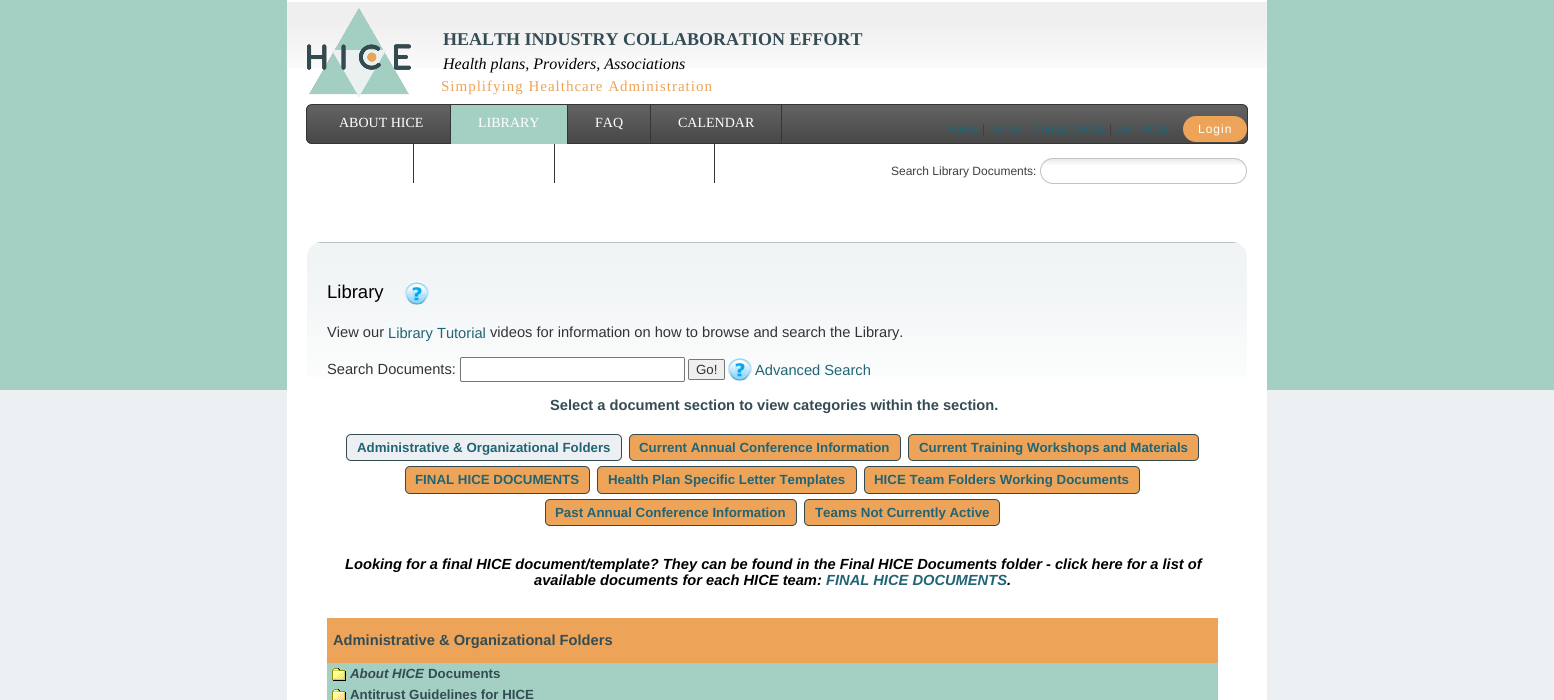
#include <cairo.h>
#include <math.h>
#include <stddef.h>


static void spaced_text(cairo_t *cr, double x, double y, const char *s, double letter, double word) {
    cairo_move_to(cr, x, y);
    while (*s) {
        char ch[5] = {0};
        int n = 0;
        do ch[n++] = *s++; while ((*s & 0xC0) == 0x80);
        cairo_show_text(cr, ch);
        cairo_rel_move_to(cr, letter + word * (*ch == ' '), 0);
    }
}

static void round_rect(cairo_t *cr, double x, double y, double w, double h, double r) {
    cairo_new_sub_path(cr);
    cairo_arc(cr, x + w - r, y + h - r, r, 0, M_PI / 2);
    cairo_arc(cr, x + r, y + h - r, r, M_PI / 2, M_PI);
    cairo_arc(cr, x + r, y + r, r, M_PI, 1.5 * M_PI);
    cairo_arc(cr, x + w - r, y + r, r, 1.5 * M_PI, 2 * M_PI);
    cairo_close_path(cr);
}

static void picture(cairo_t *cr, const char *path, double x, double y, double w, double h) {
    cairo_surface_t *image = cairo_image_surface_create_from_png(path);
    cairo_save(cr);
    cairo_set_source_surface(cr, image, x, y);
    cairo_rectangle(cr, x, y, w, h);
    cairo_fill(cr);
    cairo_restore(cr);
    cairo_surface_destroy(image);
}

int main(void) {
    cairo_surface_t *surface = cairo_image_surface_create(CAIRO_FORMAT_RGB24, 1554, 700);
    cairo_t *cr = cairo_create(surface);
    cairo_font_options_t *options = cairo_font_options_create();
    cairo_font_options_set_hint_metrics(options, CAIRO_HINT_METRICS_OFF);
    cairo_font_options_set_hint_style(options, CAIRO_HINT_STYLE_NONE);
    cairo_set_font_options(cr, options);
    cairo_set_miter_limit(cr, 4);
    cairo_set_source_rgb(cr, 0.922, 0.941, 0.949);
    cairo_paint(cr);
    cairo_set_source_rgb(cr, 0.643, 0.812, 0.765);
    cairo_rectangle(cr, 0, 0, 1554, 390);
    cairo_fill(cr);
    cairo_set_source_rgb(cr, 1, 1, 1);
    cairo_rectangle(cr, 287, 0, 980, 700);
    cairo_fill(cr);
    picture(cr, "img1.png", 287, 2, 980, 66);
    picture(cr, "img2.png", 307, 8, 104, 89);
    cairo_select_font_face(cr, "Liberation Serif", CAIRO_FONT_SLANT_NORMAL, CAIRO_FONT_WEIGHT_BOLD);
    cairo_set_font_size(cr, 18);
    cairo_set_source_rgb(cr, 0.204, 0.298, 0.325);
    cairo_move_to(cr, 443, 45);
    cairo_show_text(cr, "HEALTH INDUSTRY COLLABORATION EFFORT");
    cairo_select_font_face(cr, "Liberation Serif", CAIRO_FONT_SLANT_ITALIC, CAIRO_FONT_WEIGHT_NORMAL);
    cairo_set_font_size(cr, 16);
    cairo_set_source_rgb(cr, 0, 0, 0);
    cairo_move_to(cr, 443, 69);
    cairo_show_text(cr, "Health plans, Providers, Associations");
    cairo_select_font_face(cr, "Liberation Serif", CAIRO_FONT_SLANT_NORMAL, CAIRO_FONT_WEIGHT_NORMAL);
    cairo_set_font_size(cr, 15);
    cairo_set_source_rgb(cr, 0.929, 0.643, 0.345);
    spaced_text(cr, 441, 91, "Simplifying Healthcare Administration", 1, 0);
    picture(cr, "img4.png", 306, 105, 942, 39);
    round_rect(cr, 306.5, 104.5, 941, 39, 5.5);
    cairo_set_source_rgb(cr, 0.208, 0.208, 0.208);
    cairo_set_line_width(cr, 1);
    cairo_stroke(cr);
    cairo_select_font_face(cr, "Liberation Sans", CAIRO_FONT_SLANT_NORMAL, CAIRO_FONT_WEIGHT_NORMAL);
    cairo_set_font_size(cr, 12);
    cairo_set_source_rgb(cr, 0.125, 0.392, 0.459);
    cairo_move_to(cr, 946, 133);
    cairo_show_text(cr, "Home");
    cairo_set_source_rgb(cr, 0.243, 0.243, 0.243);
    cairo_move_to(cr, 982, 133);
    cairo_show_text(cr, "|");
    cairo_set_source_rgb(cr, 0.125, 0.392, 0.459);
    cairo_move_to(cr, 988, 133);
    cairo_show_text(cr, "Terms");
    cairo_move_to(cr, 1032, 133);
    cairo_show_text(cr, "Contact HICE");
    cairo_set_source_rgb(cr, 0.243, 0.243, 0.243);
    cairo_move_to(cr, 1109, 133);
    cairo_show_text(cr, "|");
    cairo_set_source_rgb(cr, 0.125, 0.392, 0.459);
    cairo_move_to(cr, 1115, 133);
    cairo_show_text(cr, "Join HICE");
    cairo_set_source_rgb(cr, 0.929, 0.643, 0.345);
    round_rect(cr, 1183, 116, 64, 26, 13);
    cairo_fill(cr);
    cairo_set_source_rgb(cr, 1, 1, 1);
    spaced_text(cr, 1198, 133, "Login", 1, 0);
    cairo_set_source_rgb(cr, 0.243, 0.243, 0.243);
    cairo_move_to(cr, 891, 175);
    cairo_show_text(cr, "Search Library Documents:");
    picture(cr, "img3.png", 1042, 159, 203, 6);
    round_rect(cr, 1040.5, 158.5, 206, 25, 12.5);
    cairo_set_source_rgb(cr, 0.761, 0.761, 0.761);
    cairo_stroke(cr);
    cairo_select_font_face(cr, "Liberation Serif", CAIRO_FONT_SLANT_NORMAL, CAIRO_FONT_WEIGHT_NORMAL);
    cairo_set_font_size(cr, 14);
    cairo_set_source_rgb(cr, 1, 1, 1);
    cairo_move_to(cr, 339, 127);
    cairo_show_text(cr, "ABOUT HICE");
    cairo_set_source_rgb(cr, 0.208, 0.208, 0.208);
    cairo_rectangle(cr, 450, 105, 1, 38);
    cairo_fill(cr);
    cairo_set_source_rgb(cr, 0.643, 0.812, 0.765);
    cairo_rectangle(cr, 451, 105, 116, 39);
    cairo_fill(cr);
    cairo_set_source_rgb(cr, 1, 1, 1);
    cairo_move_to(cr, 478, 127);
    cairo_show_text(cr, "LIBRARY");
    cairo_set_source_rgb(cr, 0.208, 0.208, 0.208);
    cairo_rectangle(cr, 567, 105, 1, 38);
    cairo_fill(cr);
    cairo_set_source_rgb(cr, 1, 1, 1);
    cairo_move_to(cr, 595, 127);
    cairo_show_text(cr, "FAQ");
    cairo_set_source_rgb(cr, 0.208, 0.208, 0.208);
    cairo_rectangle(cr, 650, 105, 1, 38);
    cairo_fill(cr);
    cairo_set_source_rgb(cr, 1, 1, 1);
    cairo_move_to(cr, 678, 127);
    cairo_show_text(cr, "CALENDAR");
    cairo_set_source_rgb(cr, 0.208, 0.208, 0.208);
    cairo_rectangle(cr, 781, 105, 1, 38);
    cairo_fill(cr);
    cairo_rectangle(cr, 413, 144, 1, 39);
    cairo_fill(cr);
    cairo_rectangle(cr, 554, 144, 1, 39);
    cairo_fill(cr);
    cairo_rectangle(cr, 714, 144, 1, 39);
    cairo_fill(cr);
    picture(cr, "img5.png", 307, 242, 940, 135);
    cairo_select_font_face(cr, "Liberation Sans", CAIRO_FONT_SLANT_NORMAL, CAIRO_FONT_WEIGHT_NORMAL);
    cairo_set_font_size(cr, 18.5);
    cairo_set_source_rgb(cr, 0, 0, 0);
    cairo_move_to(cr, 327, 298);
    cairo_show_text(cr, "Library");
    picture(cr, "img6.png", 405, 281, 24, 24);
    cairo_set_font_size(cr, 14.67);
    cairo_set_source_rgb(cr, 0.2, 0.2, 0.2);
    cairo_move_to(cr, 327, 337);
    cairo_show_text(cr, "View our");
    cairo_set_source_rgb(cr, 0.125, 0.392, 0.459);
    cairo_move_to(cr, 388, 338);
    cairo_show_text(cr, "Library Tutorial");
    cairo_set_source_rgb(cr, 0.2, 0.2, 0.2);
    cairo_move_to(cr, 490, 337);
    cairo_show_text(cr, "videos for information on how to browse and search the Library.");
    cairo_move_to(cr, 327, 374);
    cairo_show_text(cr, "Search Documents:");
    cairo_set_source_rgb(cr, 1, 1, 1);
    round_rect(cr, 460.5, 357.5, 224, 24, 1.5);
    cairo_fill_preserve(cr);
    cairo_set_source_rgb(cr, 0.463, 0.463, 0.463);
    cairo_stroke(cr);
    cairo_set_source_rgb(cr, 0.937, 0.937, 0.937);
    round_rect(cr, 688.5, 359.5, 36, 20, 1.5);
    cairo_fill_preserve(cr);
    cairo_set_source_rgb(cr, 0.463, 0.463, 0.463);
    cairo_stroke(cr);
    cairo_set_font_size(cr, 13.3);
    cairo_set_source_rgb(cr, 0.2, 0.2, 0.2);
    cairo_move_to(cr, 696, 374);
    cairo_show_text(cr, "Go!");
    picture(cr, "img7.png", 728, 357, 24, 24);
    cairo_set_font_size(cr, 14.67);
    cairo_set_source_rgb(cr, 0.125, 0.392, 0.459);
    cairo_move_to(cr, 755, 375);
    cairo_show_text(cr, "Advanced Search");
    cairo_select_font_face(cr, "Liberation Sans", CAIRO_FONT_SLANT_NORMAL, CAIRO_FONT_WEIGHT_BOLD);
    cairo_set_source_rgb(cr, 0.204, 0.298, 0.325);
    cairo_move_to(cr, 550, 410);
    cairo_show_text(cr, "Select a document section to view categories within the section.");
    cairo_set_source_rgb(cr, 0.922, 0.941, 0.949);
    round_rect(cr, 346.5, 434.5, 275, 26, 4.5);
    cairo_fill_preserve(cr);
    cairo_set_source_rgb(cr, 0.2, 0.29, 0.318);
    cairo_stroke(cr);
    cairo_set_font_size(cr, 13.3);
    cairo_set_source_rgb(cr, 0.125, 0.392, 0.459);
    cairo_move_to(cr, 357, 452);
    cairo_show_text(cr, "Administrative & Organizational Folders");
    cairo_set_source_rgb(cr, 0.929, 0.643, 0.345);
    round_rect(cr, 629.5, 434.5, 271, 26, 4.5);
    cairo_fill_preserve(cr);
    cairo_set_source_rgb(cr, 0.2, 0.29, 0.318);
    cairo_stroke(cr);
    cairo_set_source_rgb(cr, 0.125, 0.392, 0.459);
    cairo_move_to(cr, 639, 452);
    cairo_show_text(cr, "Current Annual Conference Information");
    cairo_set_source_rgb(cr, 0.929, 0.643, 0.345);
    round_rect(cr, 908.5, 434.5, 290, 26, 4.5);
    cairo_fill_preserve(cr);
    cairo_set_source_rgb(cr, 0.2, 0.29, 0.318);
    cairo_stroke(cr);
    cairo_set_source_rgb(cr, 0.125, 0.392, 0.459);
    cairo_move_to(cr, 919, 452);
    cairo_show_text(cr, "Current Training Workshops and Materials");
    cairo_set_source_rgb(cr, 0.929, 0.643, 0.345);
    round_rect(cr, 405.5, 466.5, 184, 27, 4.5);
    cairo_fill_preserve(cr);
    cairo_set_source_rgb(cr, 0.2, 0.29, 0.318);
    cairo_stroke(cr);
    cairo_set_source_rgb(cr, 0.125, 0.392, 0.459);
    cairo_move_to(cr, 415, 484);
    cairo_show_text(cr, "FINAL HICE DOCUMENTS");
    cairo_set_source_rgb(cr, 0.929, 0.643, 0.345);
    round_rect(cr, 597.5, 466.5, 259, 27, 4.5);
    cairo_fill_preserve(cr);
    cairo_set_source_rgb(cr, 0.2, 0.29, 0.318);
    cairo_stroke(cr);
    cairo_set_source_rgb(cr, 0.125, 0.392, 0.459);
    cairo_move_to(cr, 608, 484);
    cairo_show_text(cr, "Health Plan Specific Letter Templates");
    cairo_set_source_rgb(cr, 0.929, 0.643, 0.345);
    round_rect(cr, 864.5, 466.5, 275, 27, 4.5);
    cairo_fill_preserve(cr);
    cairo_set_source_rgb(cr, 0.2, 0.29, 0.318);
    cairo_stroke(cr);
    cairo_set_source_rgb(cr, 0.125, 0.392, 0.459);
    cairo_move_to(cr, 874, 484);
    cairo_show_text(cr, "HICE Team Folders Working Documents");
    cairo_set_source_rgb(cr, 0.929, 0.643, 0.345);
    round_rect(cr, 545.5, 499.5, 251, 26, 4.5);
    cairo_fill_preserve(cr);
    cairo_set_source_rgb(cr, 0.2, 0.29, 0.318);
    cairo_stroke(cr);
    cairo_set_source_rgb(cr, 0.125, 0.392, 0.459);
    cairo_move_to(cr, 555, 517);
    cairo_show_text(cr, "Past Annual Conference Information");
    cairo_set_source_rgb(cr, 0.929, 0.643, 0.345);
    round_rect(cr, 804.5, 499.5, 195, 26, 4.5);
    cairo_fill_preserve(cr);
    cairo_set_source_rgb(cr, 0.2, 0.29, 0.318);
    cairo_stroke(cr);
    cairo_set_source_rgb(cr, 0.125, 0.392, 0.459);
    cairo_move_to(cr, 815, 517);
    cairo_show_text(cr, "Teams Not Currently Active");
    cairo_select_font_face(cr, "Liberation Sans", CAIRO_FONT_SLANT_ITALIC, CAIRO_FONT_WEIGHT_BOLD);
    cairo_set_font_size(cr, 14.67);
    cairo_set_source_rgb(cr, 0, 0, 0);
    cairo_move_to(cr, 345, 569);
    cairo_show_text(cr, "Looking for a final HICE document/template? They can be found in the Final HICE Documents folder - click here for a list of");
    cairo_move_to(cr, 534, 585);
    cairo_show_text(cr, "available documents for each HICE team:");
    cairo_set_source_rgb(cr, 0.125, 0.392, 0.459);
    cairo_move_to(cr, 826, 585);
    cairo_show_text(cr, "FINAL HICE DOCUMENTS");
    cairo_set_source_rgb(cr, 0, 0, 0);
    cairo_move_to(cr, 1007, 585);
    cairo_show_text(cr, ".");
    cairo_set_source_rgb(cr, 0.929, 0.643, 0.345);
    cairo_rectangle(cr, 327, 618, 891, 45);
    cairo_fill(cr);
    cairo_select_font_face(cr, "Liberation Sans", CAIRO_FONT_SLANT_NORMAL, CAIRO_FONT_WEIGHT_BOLD);
    cairo_set_source_rgb(cr, 0.204, 0.298, 0.325);
    cairo_move_to(cr, 333, 645);
    cairo_show_text(cr, "Administrative & Organizational Folders");
    cairo_set_source_rgb(cr, 0.643, 0.812, 0.765);
    cairo_rectangle(cr, 327, 663, 891, 37);
    cairo_fill(cr);
    picture(cr, "img8.png", 332, 668, 14, 13);
    cairo_select_font_face(cr, "Liberation Sans", CAIRO_FONT_SLANT_ITALIC, CAIRO_FONT_WEIGHT_BOLD);
    cairo_set_font_size(cr, 13.3);
    cairo_set_source_rgb(cr, 0.204, 0.298, 0.325);
    cairo_move_to(cr, 350, 678);
    cairo_show_text(cr, "About HICE");
    cairo_select_font_face(cr, "Liberation Sans", CAIRO_FONT_SLANT_NORMAL, CAIRO_FONT_WEIGHT_BOLD);
    cairo_move_to(cr, 428, 678);
    cairo_show_text(cr, "Documents");
    picture(cr, "img9.png", 332, 689, 14, 11);
    cairo_move_to(cr, 350, 699);
    cairo_show_text(cr, "Antitrust Guidelines for HICE");
    cairo_surface_write_to_png(surface, "page.png");
    cairo_font_options_destroy(options);
    cairo_destroy(cr);
    cairo_surface_destroy(surface);
    return 0;
}
